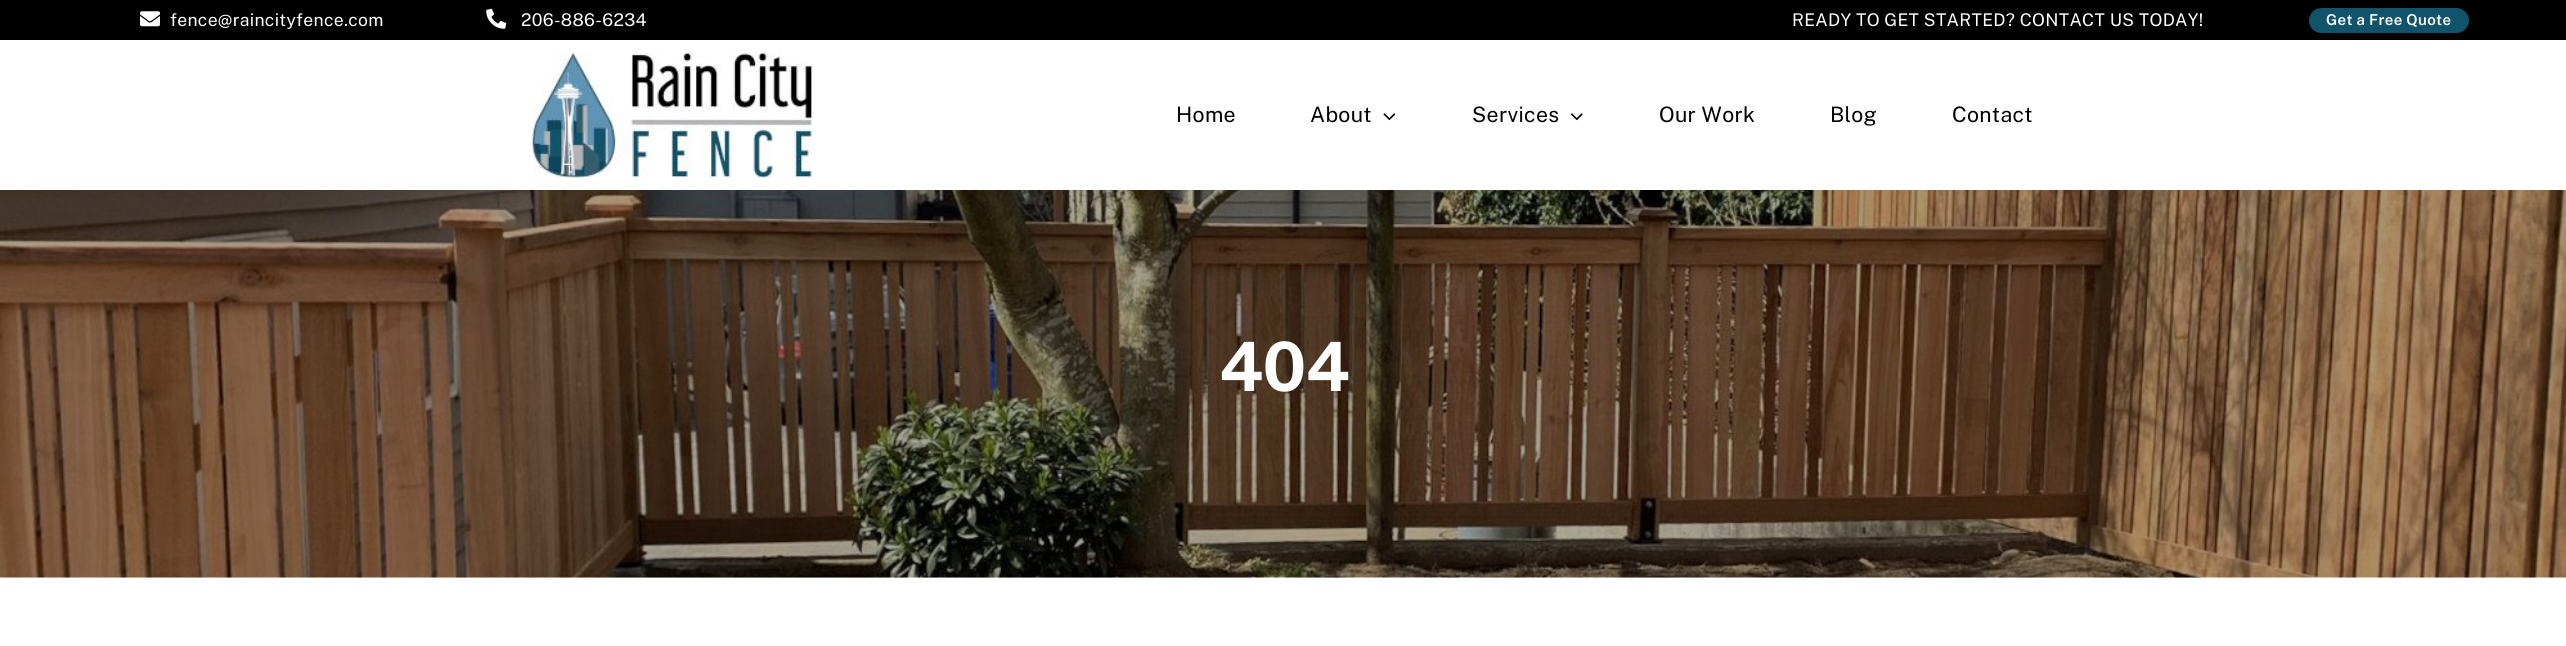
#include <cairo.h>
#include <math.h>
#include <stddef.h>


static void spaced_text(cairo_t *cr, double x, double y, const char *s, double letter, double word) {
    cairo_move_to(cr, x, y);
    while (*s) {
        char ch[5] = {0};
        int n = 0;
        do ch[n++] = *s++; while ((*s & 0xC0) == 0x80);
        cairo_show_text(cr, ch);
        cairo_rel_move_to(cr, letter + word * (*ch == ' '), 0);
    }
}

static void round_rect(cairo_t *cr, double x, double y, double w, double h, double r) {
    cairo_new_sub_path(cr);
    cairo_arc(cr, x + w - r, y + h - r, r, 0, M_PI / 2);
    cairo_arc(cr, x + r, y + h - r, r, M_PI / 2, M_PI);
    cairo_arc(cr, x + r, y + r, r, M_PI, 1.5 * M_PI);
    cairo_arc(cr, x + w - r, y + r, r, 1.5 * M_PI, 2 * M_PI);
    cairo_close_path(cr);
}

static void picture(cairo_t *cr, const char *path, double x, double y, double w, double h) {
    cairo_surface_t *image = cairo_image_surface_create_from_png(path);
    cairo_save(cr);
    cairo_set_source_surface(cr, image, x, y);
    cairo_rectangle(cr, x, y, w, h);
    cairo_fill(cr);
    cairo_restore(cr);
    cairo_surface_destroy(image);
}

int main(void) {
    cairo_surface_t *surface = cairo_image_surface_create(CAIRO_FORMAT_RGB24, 2566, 646);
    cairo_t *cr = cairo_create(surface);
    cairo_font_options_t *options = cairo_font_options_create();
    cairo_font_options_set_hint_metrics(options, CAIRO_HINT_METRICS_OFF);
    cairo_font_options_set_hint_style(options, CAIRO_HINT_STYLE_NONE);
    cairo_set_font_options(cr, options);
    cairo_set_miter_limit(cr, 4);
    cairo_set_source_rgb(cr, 1, 1, 1);
    cairo_paint(cr);
    cairo_set_source_rgb(cr, 0, 0, 0);
    cairo_rectangle(cr, 0, 0, 2566, 40);
    cairo_fill(cr);
    picture(cr, "img1.png", 140, 11, 20, 16);
    cairo_select_font_face(cr, "Public Sans", CAIRO_FONT_SLANT_NORMAL, CAIRO_FONT_WEIGHT_NORMAL);
    cairo_set_font_size(cr, 17.5);
    cairo_set_source_rgb(cr, 1, 1, 1);
    spaced_text(cr, 170, 26, "fence@raincityfence.com", 0.3, 0);
    picture(cr, "img2.png", 486, 8, 21, 21);
    spaced_text(cr, 521, 26, "206-886-6234", 0.3, 0);
    spaced_text(cr, 1792, 26, "READY TO GET STARTED? CONTACT US TODAY!", 0.3, 0);
    cairo_set_source_rgb(cr, 0.067, 0.325, 0.42);
    round_rect(cr, 2309, 8, 160, 25, 12.5);
    cairo_fill(cr);
    cairo_select_font_face(cr, "Public Sans SemiBold", CAIRO_FONT_SLANT_NORMAL, CAIRO_FONT_WEIGHT_NORMAL);
    cairo_set_font_size(cr, 15);
    cairo_set_source_rgb(cr, 1, 1, 1);
    spaced_text(cr, 2326, 25, "Get a Free Quote", 0.3, 0);
    picture(cr, "img3.png", 532, 52, 282, 126);
    cairo_select_font_face(cr, "Public Sans", CAIRO_FONT_SLANT_NORMAL, CAIRO_FONT_WEIGHT_NORMAL);
    cairo_set_font_size(cr, 21.25);
    cairo_set_source_rgb(cr, 0, 0, 0);
    spaced_text(cr, 1176, 122, "Home", 0.3, 0);
    spaced_text(cr, 1310, 122, "About", 0.3, 0);
    picture(cr, "img4.png", 1383, 113, 13, 8);
    spaced_text(cr, 1472, 122, "Services", 0.3, 0);
    picture(cr, "img5.png", 1571, 113, 12, 8);
    spaced_text(cr, 1659, 122, "Our Work", 0.3, 0);
    spaced_text(cr, 1830, 122, "Blog", 0.3, 0);
    spaced_text(cr, 1952, 122, "Contact", 0.3, 0);
    picture(cr, "img6.png", 0, 190, 2566, 388);
    cairo_select_font_face(cr, "Public Sans", CAIRO_FONT_SLANT_NORMAL, CAIRO_FONT_WEIGHT_BOLD);
    cairo_set_font_size(cr, 68);
    cairo_set_source_rgb(cr, 1, 1, 1);
    spaced_text(cr, 1219, 391, "404", -1, 0);
    cairo_surface_write_to_png(surface, "page.png");
    cairo_font_options_destroy(options);
    cairo_destroy(cr);
    cairo_surface_destroy(surface);
    return 0;
}
